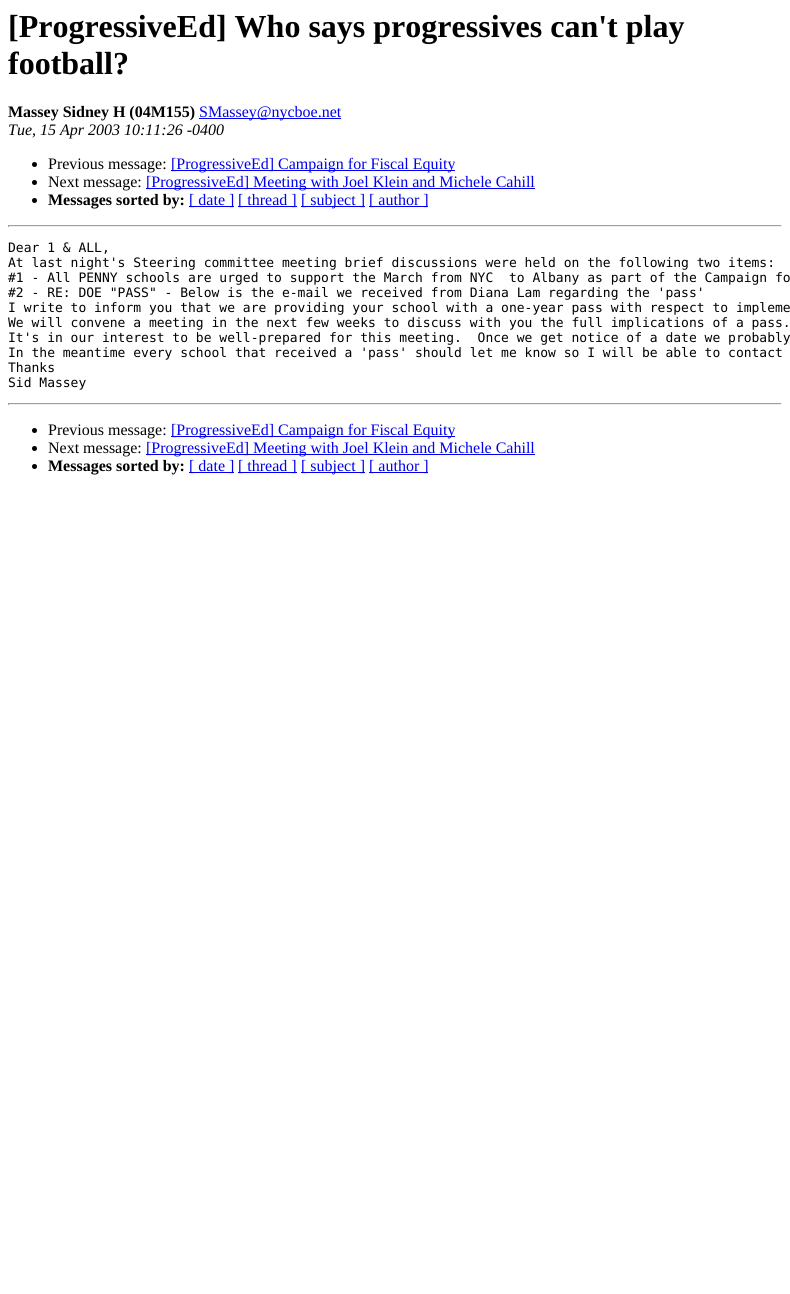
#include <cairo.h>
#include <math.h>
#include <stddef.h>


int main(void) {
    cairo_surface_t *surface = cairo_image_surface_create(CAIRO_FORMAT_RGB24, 790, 1294);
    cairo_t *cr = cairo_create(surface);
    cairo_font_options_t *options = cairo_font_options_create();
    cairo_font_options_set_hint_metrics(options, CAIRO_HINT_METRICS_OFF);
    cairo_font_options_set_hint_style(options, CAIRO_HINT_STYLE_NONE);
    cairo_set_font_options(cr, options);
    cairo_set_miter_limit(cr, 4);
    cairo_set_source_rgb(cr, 1, 1, 1);
    cairo_paint(cr);
    cairo_select_font_face(cr, "Liberation Serif", CAIRO_FONT_SLANT_NORMAL, CAIRO_FONT_WEIGHT_BOLD);
    cairo_set_font_size(cr, 32);
    cairo_set_source_rgb(cr, 0, 0, 0);
    cairo_move_to(cr, 8, 37);
    cairo_show_text(cr, "[ProgressiveEd] Who says progressives can't play");
    cairo_move_to(cr, 8, 74);
    cairo_show_text(cr, "football?");
    cairo_set_font_size(cr, 16);
    cairo_move_to(cr, 8, 117);
    cairo_show_text(cr, "Massey Sidney H (04M155)");
    cairo_set_source_rgb(cr, 0, 0, 0.933);
    cairo_rectangle(cr, 199, 118, 142, 1);
    cairo_fill(cr);
    cairo_select_font_face(cr, "Liberation Serif", CAIRO_FONT_SLANT_NORMAL, CAIRO_FONT_WEIGHT_NORMAL);
    cairo_move_to(cr, 199, 117);
    cairo_show_text(cr, "SMassey@nycboe.net");
    cairo_select_font_face(cr, "Liberation Serif", CAIRO_FONT_SLANT_ITALIC, CAIRO_FONT_WEIGHT_NORMAL);
    cairo_set_source_rgb(cr, 0, 0, 0);
    cairo_move_to(cr, 8, 135);
    cairo_show_text(cr, "Tue, 15 Apr 2003 10:11:26 -0400");
    cairo_new_path(cr);
    cairo_arc(cr, 34.5, 164.5, 2.5, 0, 2 * M_PI);
    cairo_fill(cr);
    cairo_select_font_face(cr, "Liberation Serif", CAIRO_FONT_SLANT_NORMAL, CAIRO_FONT_WEIGHT_NORMAL);
    cairo_move_to(cr, 48, 169);
    cairo_show_text(cr, "Previous message:");
    cairo_set_source_rgb(cr, 0, 0, 0.933);
    cairo_rectangle(cr, 171, 170, 284, 1);
    cairo_fill(cr);
    cairo_move_to(cr, 171, 169);
    cairo_show_text(cr, "[ProgressiveEd] Campaign for Fiscal Equity");
    cairo_set_source_rgb(cr, 0, 0, 0);
    cairo_new_path(cr);
    cairo_arc(cr, 34.5, 182.5, 2.5, 0, 2 * M_PI);
    cairo_fill(cr);
    cairo_move_to(cr, 48, 187);
    cairo_show_text(cr, "Next message:");
    cairo_set_source_rgb(cr, 0, 0, 0.933);
    cairo_rectangle(cr, 146, 188, 389, 1);
    cairo_fill(cr);
    cairo_move_to(cr, 146, 187);
    cairo_show_text(cr, "[ProgressiveEd] Meeting with Joel Klein and Michele Cahill");
    cairo_set_source_rgb(cr, 0, 0, 0);
    cairo_new_path(cr);
    cairo_arc(cr, 34.5, 200.5, 2.5, 0, 2 * M_PI);
    cairo_fill(cr);
    cairo_select_font_face(cr, "Liberation Serif", CAIRO_FONT_SLANT_NORMAL, CAIRO_FONT_WEIGHT_BOLD);
    cairo_move_to(cr, 48, 205);
    cairo_show_text(cr, "Messages sorted by:");
    cairo_set_source_rgb(cr, 0, 0, 0.933);
    cairo_rectangle(cr, 189, 206, 45, 1);
    cairo_fill(cr);
    cairo_select_font_face(cr, "Liberation Serif", CAIRO_FONT_SLANT_NORMAL, CAIRO_FONT_WEIGHT_NORMAL);
    cairo_move_to(cr, 189, 205);
    cairo_show_text(cr, "[ date ]");
    cairo_rectangle(cr, 238, 206, 59, 1);
    cairo_fill(cr);
    cairo_move_to(cr, 238, 205);
    cairo_show_text(cr, "[ thread ]");
    cairo_rectangle(cr, 301, 206, 64, 1);
    cairo_fill(cr);
    cairo_move_to(cr, 301, 205);
    cairo_show_text(cr, "[ subject ]");
    cairo_rectangle(cr, 369, 206, 59, 1);
    cairo_fill(cr);
    cairo_move_to(cr, 369, 205);
    cairo_show_text(cr, "[ author ]");
    cairo_set_source_rgb(cr, 0.624, 0.624, 0.624);
    cairo_rectangle(cr, 8, 225, 774, 1);
    cairo_fill(cr);
    cairo_set_source_rgb(cr, 0.933, 0.933, 0.933);
    cairo_rectangle(cr, 781, 225, 1, 2);
    cairo_fill(cr);
    cairo_rectangle(cr, 8, 226, 774, 1);
    cairo_fill(cr);
    cairo_set_source_rgb(cr, 0.624, 0.624, 0.624);
    cairo_rectangle(cr, 8, 225, 1, 2);
    cairo_fill(cr);
    cairo_select_font_face(cr, "DejaVu Sans Mono", CAIRO_FONT_SLANT_NORMAL, CAIRO_FONT_WEIGHT_NORMAL);
    cairo_set_font_size(cr, 13);
    cairo_set_source_rgb(cr, 0, 0, 0);
    cairo_move_to(cr, 8, 252);
    cairo_show_text(cr, "Dear 1 & ALL,");
    cairo_move_to(cr, 8, 267);
    cairo_show_text(cr, "At last night's Steering committee meeting brief discussions were held on the following two items:");
    cairo_move_to(cr, 8, 282);
    cairo_show_text(cr, "#1 - All PENNY schools are urged to support the March from NYC  to Albany as part of the Campaign fo");
    cairo_move_to(cr, 8, 297);
    cairo_show_text(cr, "#2 - RE: DOE \"PASS\" - Below is the e-mail we received from Diana Lam regarding the 'pass'");
    cairo_move_to(cr, 8, 312);
    cairo_show_text(cr, "I write to inform you that we are providing your school with a one-year pass with respect to impleme");
    cairo_move_to(cr, 8, 327);
    cairo_show_text(cr, "We will convene a meeting in the next few weeks to discuss with you the full implications of a pass.");
    cairo_move_to(cr, 8, 342);
    cairo_show_text(cr, "It's in our interest to be well-prepared for this meeting.  Once we get notice of a date we probably");
    cairo_move_to(cr, 8, 357);
    cairo_show_text(cr, "In the meantime every school that received a 'pass' should let me know so I will be able to contact");
    cairo_move_to(cr, 8, 372);
    cairo_show_text(cr, "Thanks");
    cairo_move_to(cr, 8, 387);
    cairo_show_text(cr, "Sid Massey");
    cairo_set_source_rgb(cr, 0.624, 0.624, 0.624);
    cairo_rectangle(cr, 8, 403, 774, 1);
    cairo_fill(cr);
    cairo_set_source_rgb(cr, 0.933, 0.933, 0.933);
    cairo_rectangle(cr, 781, 403, 1, 2);
    cairo_fill(cr);
    cairo_rectangle(cr, 8, 404, 774, 1);
    cairo_fill(cr);
    cairo_set_source_rgb(cr, 0.624, 0.624, 0.624);
    cairo_rectangle(cr, 8, 403, 1, 2);
    cairo_fill(cr);
    cairo_set_source_rgb(cr, 0, 0, 0);
    cairo_arc(cr, 34.5, 430.5, 2.5, 0, 2 * M_PI);
    cairo_fill(cr);
    cairo_select_font_face(cr, "Liberation Serif", CAIRO_FONT_SLANT_NORMAL, CAIRO_FONT_WEIGHT_NORMAL);
    cairo_set_font_size(cr, 16);
    cairo_move_to(cr, 48, 435);
    cairo_show_text(cr, "Previous message:");
    cairo_set_source_rgb(cr, 0, 0, 0.933);
    cairo_rectangle(cr, 171, 436, 284, 1);
    cairo_fill(cr);
    cairo_move_to(cr, 171, 435);
    cairo_show_text(cr, "[ProgressiveEd] Campaign for Fiscal Equity");
    cairo_set_source_rgb(cr, 0, 0, 0);
    cairo_new_path(cr);
    cairo_arc(cr, 34.5, 448.5, 2.5, 0, 2 * M_PI);
    cairo_fill(cr);
    cairo_move_to(cr, 48, 453);
    cairo_show_text(cr, "Next message:");
    cairo_set_source_rgb(cr, 0, 0, 0.933);
    cairo_rectangle(cr, 146, 454, 389, 1);
    cairo_fill(cr);
    cairo_move_to(cr, 146, 453);
    cairo_show_text(cr, "[ProgressiveEd] Meeting with Joel Klein and Michele Cahill");
    cairo_set_source_rgb(cr, 0, 0, 0);
    cairo_new_path(cr);
    cairo_arc(cr, 34.5, 466.5, 2.5, 0, 2 * M_PI);
    cairo_fill(cr);
    cairo_select_font_face(cr, "Liberation Serif", CAIRO_FONT_SLANT_NORMAL, CAIRO_FONT_WEIGHT_BOLD);
    cairo_move_to(cr, 48, 471);
    cairo_show_text(cr, "Messages sorted by:");
    cairo_set_source_rgb(cr, 0, 0, 0.933);
    cairo_rectangle(cr, 189, 472, 45, 1);
    cairo_fill(cr);
    cairo_select_font_face(cr, "Liberation Serif", CAIRO_FONT_SLANT_NORMAL, CAIRO_FONT_WEIGHT_NORMAL);
    cairo_move_to(cr, 189, 471);
    cairo_show_text(cr, "[ date ]");
    cairo_rectangle(cr, 238, 472, 59, 1);
    cairo_fill(cr);
    cairo_move_to(cr, 238, 471);
    cairo_show_text(cr, "[ thread ]");
    cairo_rectangle(cr, 301, 472, 64, 1);
    cairo_fill(cr);
    cairo_move_to(cr, 301, 471);
    cairo_show_text(cr, "[ subject ]");
    cairo_rectangle(cr, 369, 472, 59, 1);
    cairo_fill(cr);
    cairo_move_to(cr, 369, 471);
    cairo_show_text(cr, "[ author ]");
    cairo_surface_write_to_png(surface, "page.png");
    cairo_font_options_destroy(options);
    cairo_destroy(cr);
    cairo_surface_destroy(surface);
    return 0;
}
